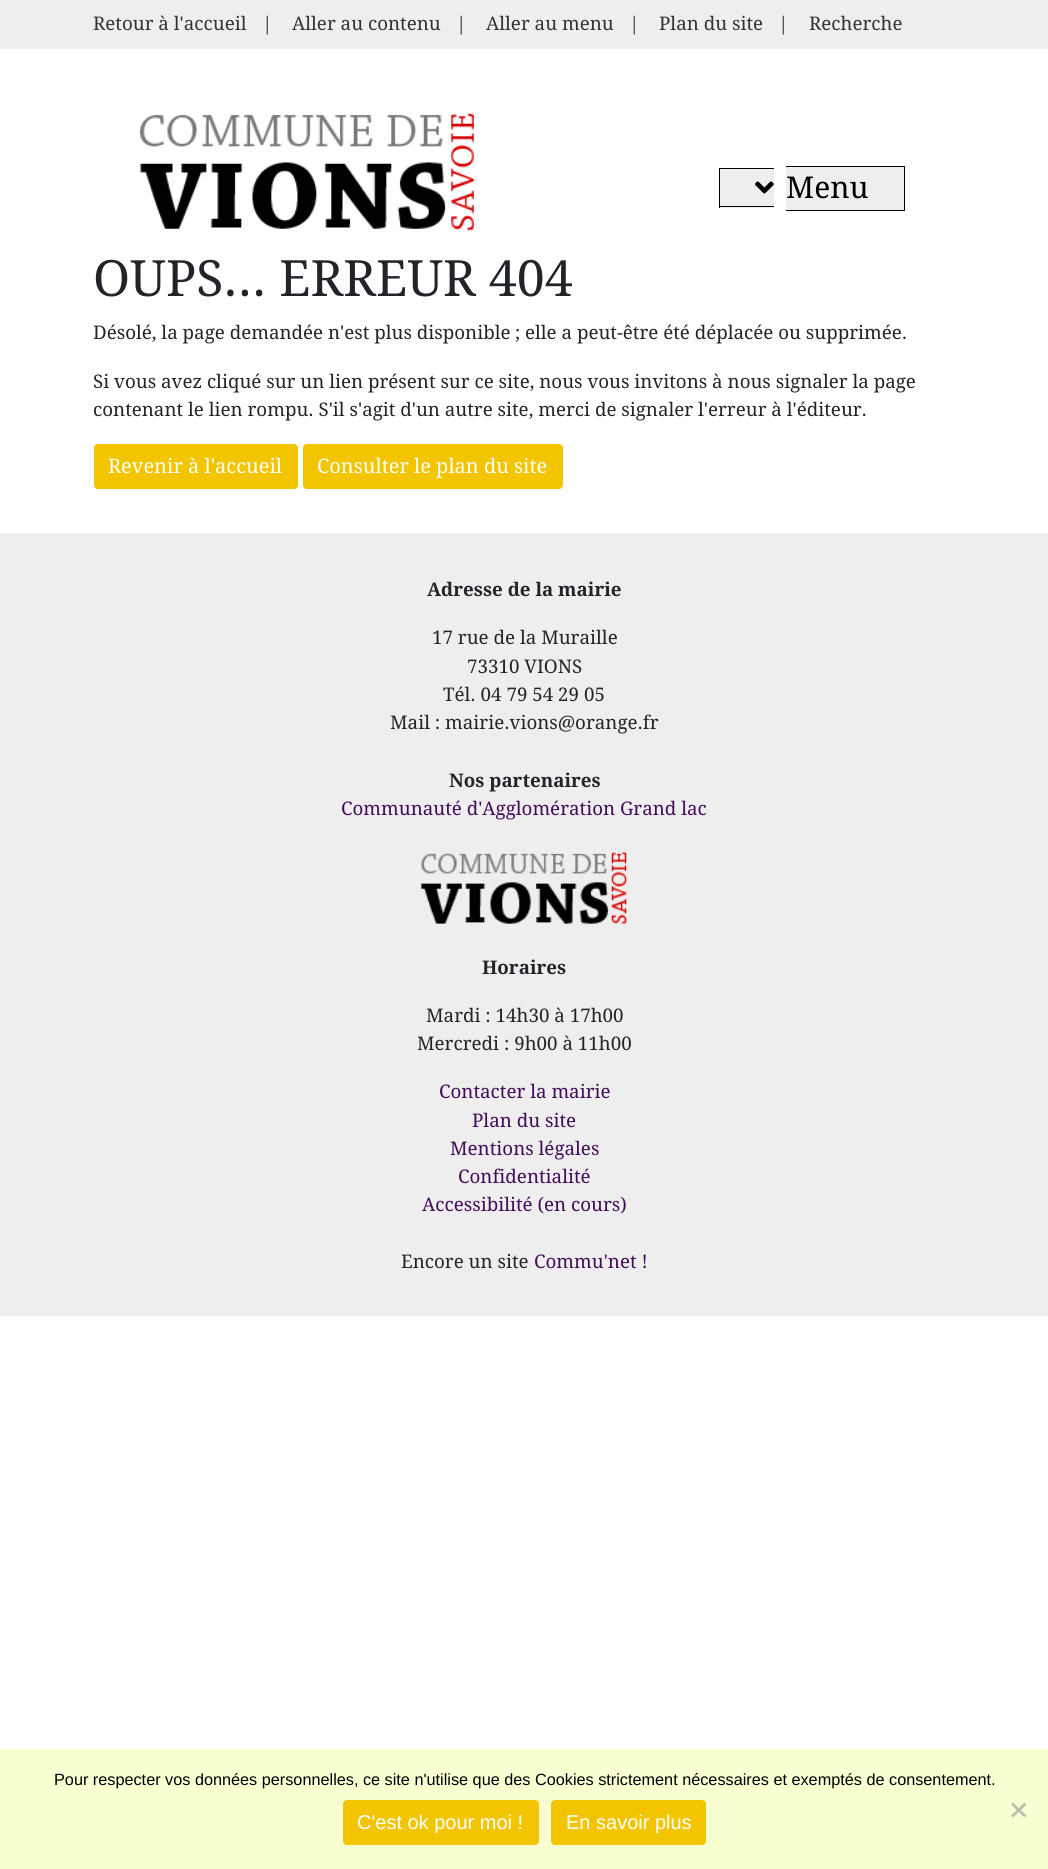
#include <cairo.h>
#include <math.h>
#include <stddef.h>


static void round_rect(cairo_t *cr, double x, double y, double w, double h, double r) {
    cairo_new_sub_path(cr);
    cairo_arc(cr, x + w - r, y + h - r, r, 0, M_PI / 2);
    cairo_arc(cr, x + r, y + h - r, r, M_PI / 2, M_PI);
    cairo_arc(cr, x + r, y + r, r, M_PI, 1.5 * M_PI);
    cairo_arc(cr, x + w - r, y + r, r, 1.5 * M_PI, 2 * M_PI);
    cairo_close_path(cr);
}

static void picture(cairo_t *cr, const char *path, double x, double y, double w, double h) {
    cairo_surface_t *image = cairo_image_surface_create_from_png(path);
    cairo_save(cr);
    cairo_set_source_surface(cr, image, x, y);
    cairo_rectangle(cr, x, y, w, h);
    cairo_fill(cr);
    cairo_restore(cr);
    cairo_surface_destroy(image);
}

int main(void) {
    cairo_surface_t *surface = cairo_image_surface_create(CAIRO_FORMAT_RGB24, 1048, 1869);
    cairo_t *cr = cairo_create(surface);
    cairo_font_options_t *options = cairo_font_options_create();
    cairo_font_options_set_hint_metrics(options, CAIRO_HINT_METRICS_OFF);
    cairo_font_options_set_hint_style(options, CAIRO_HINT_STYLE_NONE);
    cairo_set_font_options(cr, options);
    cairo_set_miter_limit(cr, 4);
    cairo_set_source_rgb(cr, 1, 1, 1);
    cairo_paint(cr);
    cairo_set_source_rgb(cr, 0.933, 0.933, 0.933);
    cairo_rectangle(cr, 0, 0, 1048, 49);
    cairo_fill(cr);
    cairo_select_font_face(cr, "Droid Serif", CAIRO_FONT_SLANT_NORMAL, CAIRO_FONT_WEIGHT_NORMAL);
    cairo_set_font_size(cr, 18.75);
    cairo_set_source_rgb(cr, 0.2, 0.2, 0.2);
    cairo_move_to(cr, 93, 30);
    cairo_show_text(cr, "Retour à l'accueil");
    cairo_move_to(cr, 262, 30);
    cairo_show_text(cr, "|");
    cairo_move_to(cr, 292, 30);
    cairo_show_text(cr, "Aller au contenu");
    cairo_move_to(cr, 456, 30);
    cairo_show_text(cr, "|");
    cairo_move_to(cr, 486, 30);
    cairo_show_text(cr, "Aller au menu");
    cairo_move_to(cr, 629, 30);
    cairo_show_text(cr, "|");
    cairo_move_to(cr, 659, 30);
    cairo_show_text(cr, "Plan du site");
    cairo_move_to(cr, 778, 30);
    cairo_show_text(cr, "|");
    cairo_move_to(cr, 809, 30);
    cairo_show_text(cr, "Recherche");
    picture(cr, "img1.png", 139, 112, 335, 119);
    cairo_set_source_rgb(cr, 0.933, 0.933, 0.933);
    cairo_rectangle(cr, 720, 169, 54, 39);
    cairo_fill(cr);
    cairo_set_source_rgb(cr, 0, 0, 0);
    cairo_rectangle(cr, 719, 168, 55, 1);
    cairo_fill(cr);
    cairo_rectangle(cr, 719, 206, 55, 1);
    cairo_fill(cr);
    cairo_rectangle(cr, 719, 168, 1, 40);
    cairo_fill(cr);
    cairo_set_source_rgb(cr, 0.933, 0.933, 0.933);
    cairo_rectangle(cr, 786, 167, 118, 43);
    cairo_fill(cr);
    cairo_set_source_rgb(cr, 0, 0, 0);
    cairo_rectangle(cr, 786, 166, 119, 1);
    cairo_fill(cr);
    cairo_rectangle(cr, 904, 166, 1, 45);
    cairo_fill(cr);
    cairo_rectangle(cr, 786, 210, 119, 1);
    cairo_fill(cr);
    picture(cr, "img2.png", 755, 181, 19, 13);
    cairo_set_font_size(cr, 30);
    cairo_move_to(cr, 786, 198);
    cairo_show_text(cr, "Menu");
    cairo_set_font_size(cr, 50);
    cairo_set_source_rgb(cr, 0.129, 0.145, 0.161);
    cairo_move_to(cr, 93, 296);
    cairo_show_text(cr, "OUPS... ERREUR 404");
    cairo_set_font_size(cr, 18.75);
    cairo_move_to(cr, 93, 339);
    cairo_show_text(cr, "Désolé, la page demandée n'est plus disponible ; elle a peut-être été déplacée ou supprimée.");
    cairo_move_to(cr, 93, 388);
    cairo_show_text(cr, "Si vous avez cliqué sur un lien présent sur ce site, nous vous invitons à nous signaler la page");
    cairo_move_to(cr, 93, 416);
    cairo_show_text(cr, "contenant le lien rompu. S'il s'agit d'un autre site, merci de signaler l'erreur à l'éditeur.");
    cairo_set_source_rgb(cr, 0.949, 0.773, 0);
    round_rect(cr, 94, 444, 204, 45, 4);
    cairo_fill(cr);
    cairo_set_font_size(cr, 20);
    cairo_set_source_rgb(cr, 1, 1, 1);
    cairo_move_to(cr, 108, 473);
    cairo_show_text(cr, "Revenir à l'accueil");
    cairo_set_source_rgb(cr, 0.949, 0.773, 0);
    round_rect(cr, 303, 444, 260, 45, 4);
    cairo_fill(cr);
    cairo_set_source_rgb(cr, 1, 1, 1);
    cairo_move_to(cr, 317, 473);
    cairo_show_text(cr, "Consulter le plan du site");
    cairo_set_source_rgb(cr, 0.933, 0.933, 0.933);
    cairo_rectangle(cr, 0, 533, 1048, 783);
    cairo_fill(cr);
    cairo_select_font_face(cr, "Droid Serif", CAIRO_FONT_SLANT_NORMAL, CAIRO_FONT_WEIGHT_BOLD);
    cairo_set_font_size(cr, 18.75);
    cairo_set_source_rgb(cr, 0.129, 0.145, 0.161);
    cairo_move_to(cr, 427, 596);
    cairo_show_text(cr, "Adresse de la mairie");
    cairo_select_font_face(cr, "Droid Serif", CAIRO_FONT_SLANT_NORMAL, CAIRO_FONT_WEIGHT_NORMAL);
    cairo_move_to(cr, 432, 644);
    cairo_show_text(cr, "17 rue de la Muraille");
    cairo_move_to(cr, 467, 673);
    cairo_show_text(cr, "73310 VIONS");
    cairo_move_to(cr, 443, 701);
    cairo_show_text(cr, "Tél. 04 79 54 29 05");
    cairo_move_to(cr, 390, 729);
    cairo_show_text(cr, "Mail : mairie.vions@orange.fr");
    cairo_select_font_face(cr, "Droid Serif", CAIRO_FONT_SLANT_NORMAL, CAIRO_FONT_WEIGHT_BOLD);
    cairo_move_to(cr, 449, 787);
    cairo_show_text(cr, "Nos partenaires");
    cairo_select_font_face(cr, "Droid Serif", CAIRO_FONT_SLANT_NORMAL, CAIRO_FONT_WEIGHT_NORMAL);
    cairo_set_source_rgb(cr, 0.267, 0.043, 0.357);
    cairo_move_to(cr, 341, 815);
    cairo_show_text(cr, "Communauté d'Agglomération Grand lac");
    picture(cr, "img3.png", 421, 851, 206, 73);
    cairo_select_font_face(cr, "Droid Serif", CAIRO_FONT_SLANT_NORMAL, CAIRO_FONT_WEIGHT_BOLD);
    cairo_set_source_rgb(cr, 0.129, 0.145, 0.161);
    cairo_move_to(cr, 482, 974);
    cairo_show_text(cr, "Horaires");
    cairo_select_font_face(cr, "Droid Serif", CAIRO_FONT_SLANT_NORMAL, CAIRO_FONT_WEIGHT_NORMAL);
    cairo_move_to(cr, 426, 1022);
    cairo_show_text(cr, "Mardi : 14h30 à 17h00");
    cairo_move_to(cr, 417, 1050);
    cairo_show_text(cr, "Mercredi : 9h00 à 11h00");
    cairo_set_source_rgb(cr, 0.267, 0.043, 0.357);
    cairo_move_to(cr, 439, 1098);
    cairo_show_text(cr, "Contacter la mairie");
    cairo_move_to(cr, 472, 1127);
    cairo_show_text(cr, "Plan du site");
    cairo_move_to(cr, 450, 1155);
    cairo_show_text(cr, "Mentions légales");
    cairo_move_to(cr, 458, 1183);
    cairo_show_text(cr, "Confidentialité");
    cairo_move_to(cr, 422, 1211);
    cairo_show_text(cr, "Accessibilité (en cours)");
    cairo_set_source_rgb(cr, 0.129, 0.145, 0.161);
    cairo_move_to(cr, 401, 1268);
    cairo_show_text(cr, "Encore un site");
    cairo_set_source_rgb(cr, 0.267, 0.043, 0.357);
    cairo_move_to(cr, 534, 1268);
    cairo_show_text(cr, "Commu'net !");
    cairo_set_source_rgb(cr, 0.969, 1, 0.82);
    cairo_rectangle(cr, 0, 1749, 1048, 120);
    cairo_fill(cr);
    cairo_select_font_face(cr, "Liberation Sans", CAIRO_FONT_SLANT_NORMAL, CAIRO_FONT_WEIGHT_NORMAL);
    cairo_set_font_size(cr, 16.25);
    cairo_set_source_rgb(cr, 0, 0, 0);
    cairo_move_to(cr, 54, 1785);
    cairo_show_text(cr, "Pour respecter vos données personnelles, ce site n'utilise que des Cookies strictement nécessaires et exemptés de consentement.");
    cairo_set_source_rgb(cr, 0.737, 0.753, 0.663);
    cairo_new_path(cr);
    cairo_move_to(cr, 1024.5, 1802.5);
    cairo_line_to(cr, 1026.5, 1804.5);
    cairo_line_to(cr, 1013, 1817.5);
    cairo_line_to(cr, 1011, 1815.5);
    cairo_close_path(cr);
    cairo_fill(cr);
    cairo_new_path(cr);
    cairo_move_to(cr, 1011, 1804.5);
    cairo_line_to(cr, 1013, 1802.5);
    cairo_line_to(cr, 1026.5, 1815.5);
    cairo_line_to(cr, 1024.5, 1817.5);
    cairo_close_path(cr);
    cairo_fill(cr);
    cairo_set_source_rgb(cr, 0.949, 0.773, 0);
    round_rect(cr, 343, 1800, 196, 45, 4);
    cairo_fill(cr);
    cairo_set_font_size(cr, 20);
    cairo_set_source_rgb(cr, 1, 1, 1);
    cairo_move_to(cr, 357, 1829);
    cairo_show_text(cr, "C'est ok pour moi !");
    cairo_set_source_rgb(cr, 0.949, 0.773, 0);
    round_rect(cr, 551, 1800, 155, 45, 4);
    cairo_fill(cr);
    cairo_set_source_rgb(cr, 1, 1, 1);
    cairo_move_to(cr, 566, 1829);
    cairo_show_text(cr, "En savoir plus");
    cairo_surface_write_to_png(surface, "page.png");
    cairo_font_options_destroy(options);
    cairo_destroy(cr);
    cairo_surface_destroy(surface);
    return 0;
}
